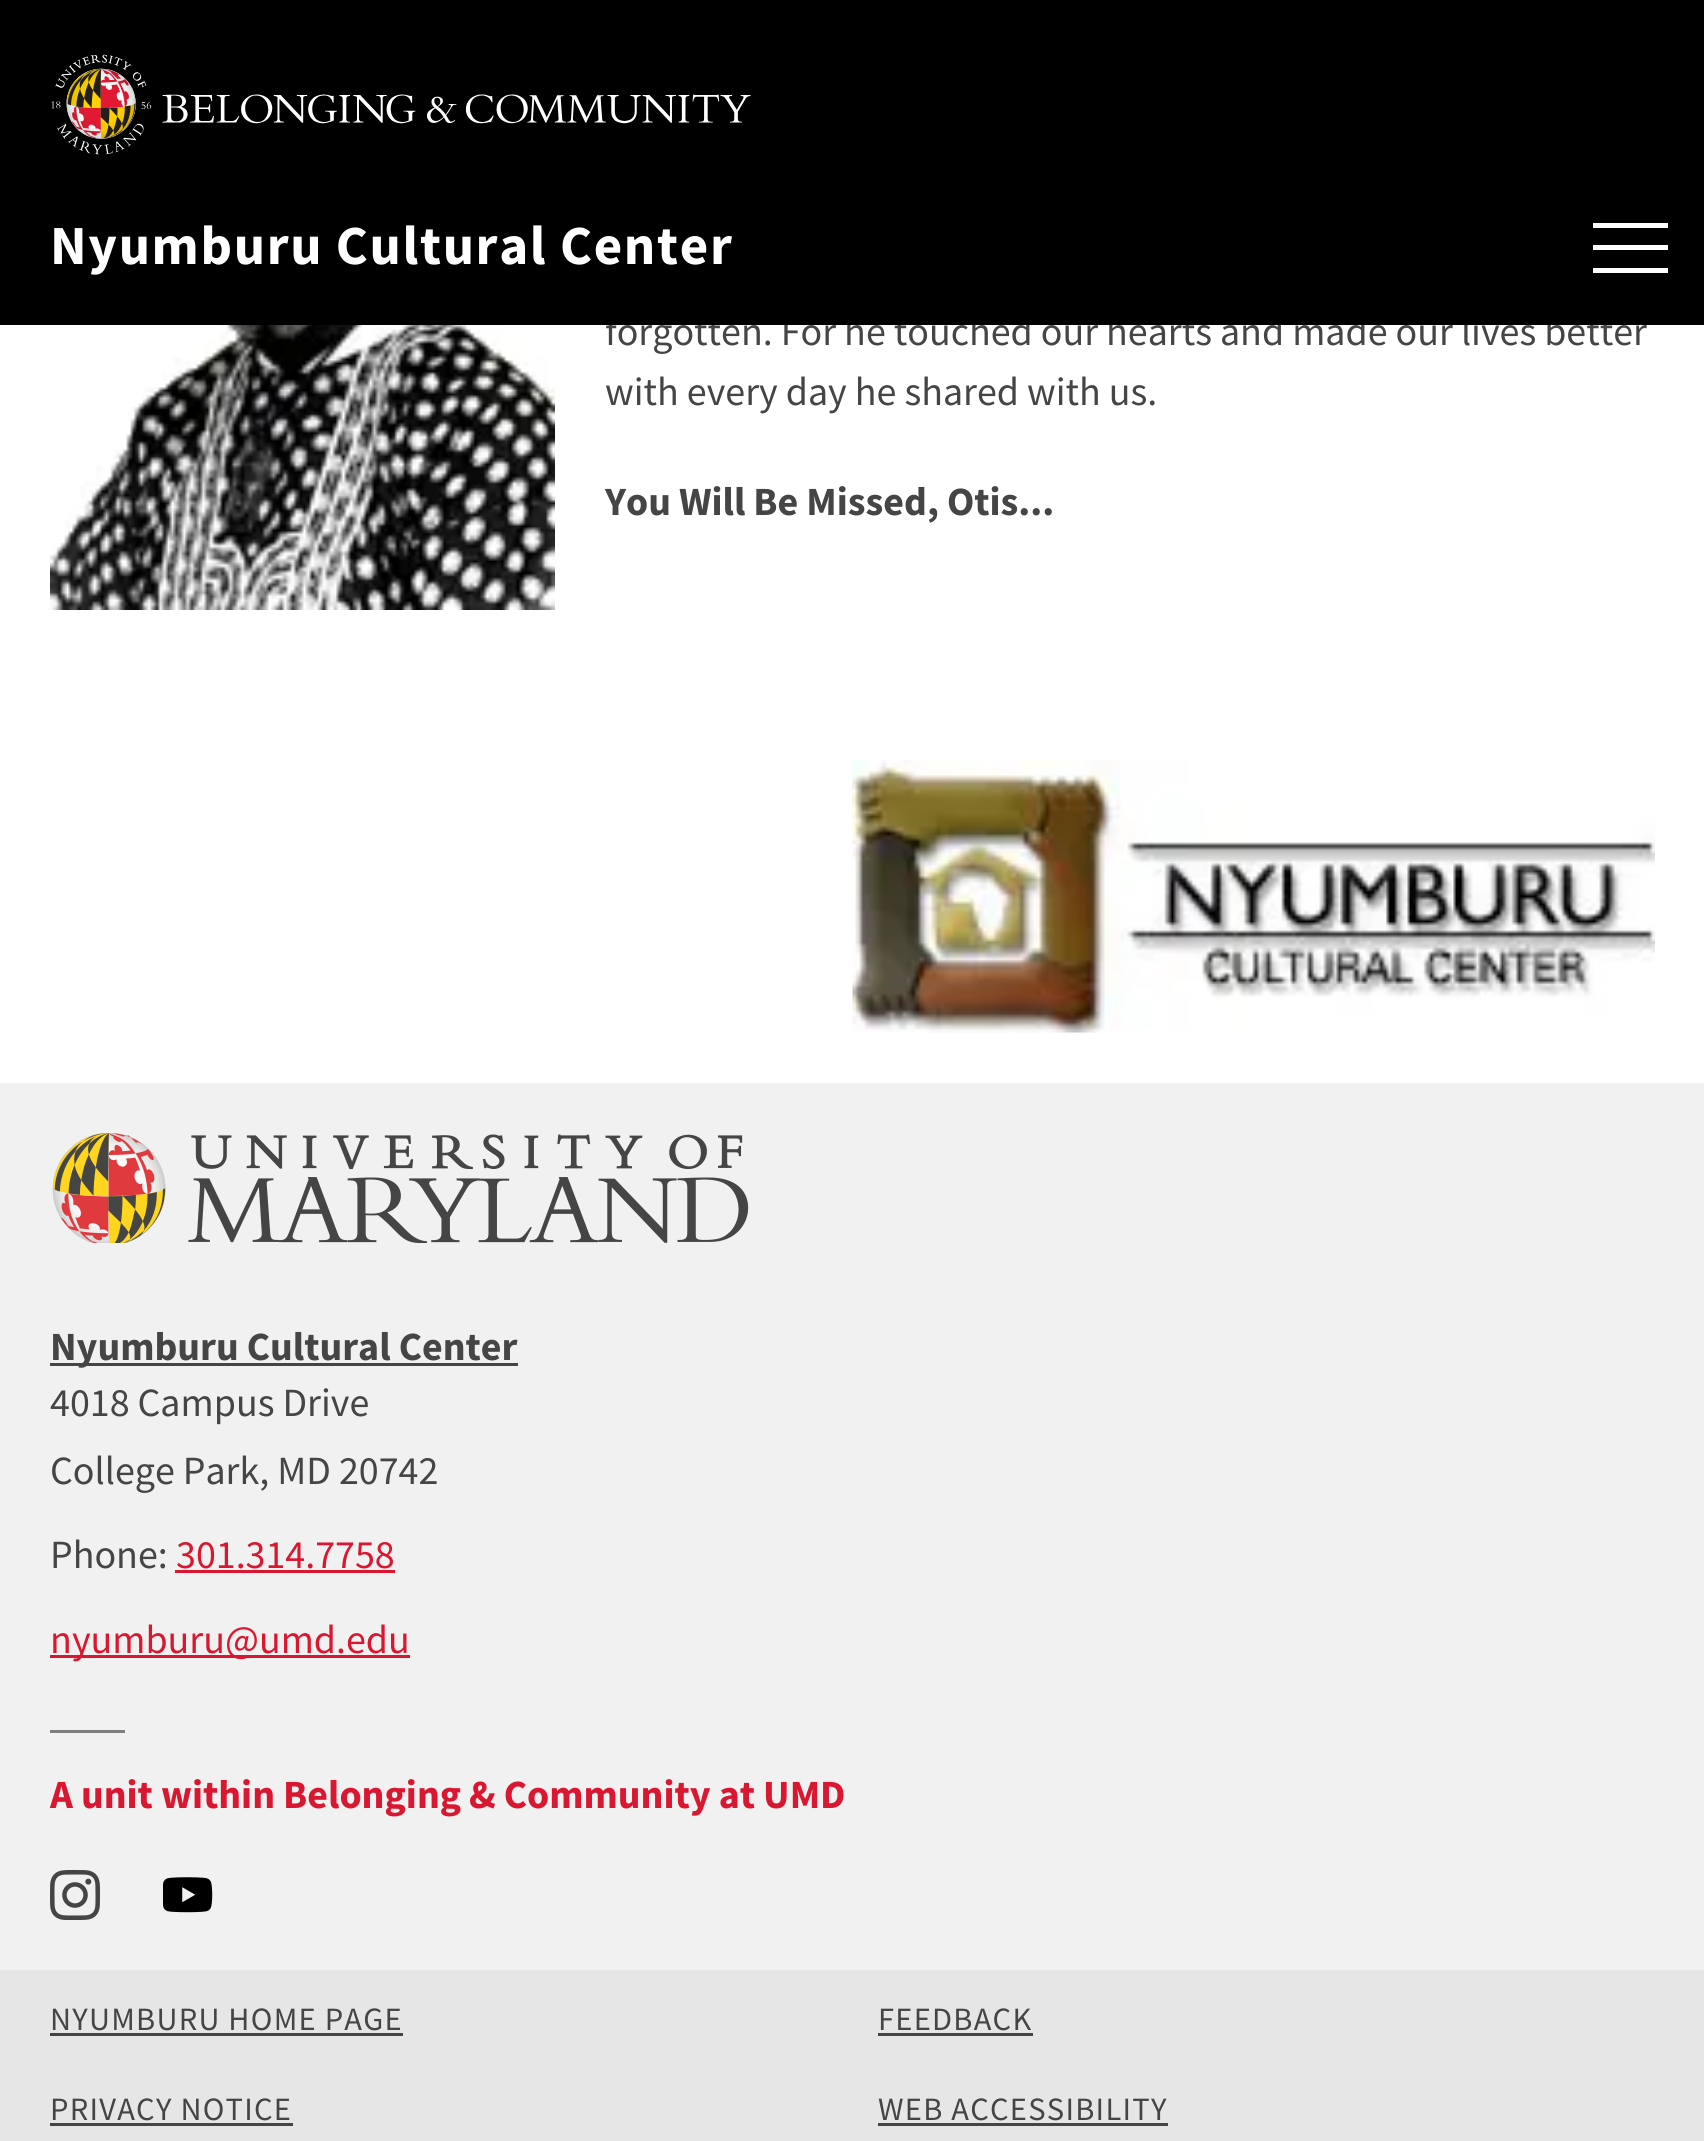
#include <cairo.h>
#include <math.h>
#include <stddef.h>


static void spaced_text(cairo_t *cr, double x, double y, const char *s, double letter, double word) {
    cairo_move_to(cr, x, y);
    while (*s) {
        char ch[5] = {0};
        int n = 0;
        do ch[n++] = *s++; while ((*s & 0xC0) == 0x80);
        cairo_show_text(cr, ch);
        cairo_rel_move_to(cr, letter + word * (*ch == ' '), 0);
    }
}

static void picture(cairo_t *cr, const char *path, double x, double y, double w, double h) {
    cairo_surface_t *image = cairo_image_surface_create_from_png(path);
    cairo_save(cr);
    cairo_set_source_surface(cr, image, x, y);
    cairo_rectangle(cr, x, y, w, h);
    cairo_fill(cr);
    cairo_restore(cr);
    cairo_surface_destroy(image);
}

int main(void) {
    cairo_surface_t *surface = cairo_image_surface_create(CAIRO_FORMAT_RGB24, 1704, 2141);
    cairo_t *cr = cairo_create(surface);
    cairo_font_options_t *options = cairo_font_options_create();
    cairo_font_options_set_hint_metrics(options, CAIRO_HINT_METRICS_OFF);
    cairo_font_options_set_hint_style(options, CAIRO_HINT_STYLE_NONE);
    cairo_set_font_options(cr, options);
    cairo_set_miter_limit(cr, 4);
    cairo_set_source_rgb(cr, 1, 1, 1);
    cairo_paint(cr);
    cairo_select_font_face(cr, "Source Sans Pro", CAIRO_FONT_SLANT_NORMAL, CAIRO_FONT_WEIGHT_NORMAL);
    cairo_set_font_size(cr, 40);
    cairo_set_source_rgb(cr, 0.271, 0.271, 0.271);
    cairo_move_to(cr, 605, 345);
    cairo_show_text(cr, "forgotten. For he touched our hearts and made our lives better");
    cairo_set_source_rgb(cr, 0, 0, 0);
    cairo_rectangle(cr, 0, 0, 1704, 325);
    cairo_fill(cr);
    picture(cr, "img1.png", 51, 54, 700, 101);
    cairo_select_font_face(cr, "Source Sans Pro", CAIRO_FONT_SLANT_NORMAL, CAIRO_FONT_WEIGHT_BOLD);
    cairo_set_font_size(cr, 55.1);
    cairo_set_source_rgb(cr, 1, 1, 1);
    spaced_text(cr, 50, 264, "Nyumburu Cultural Center", 1.65, 0);
    cairo_rectangle(cr, 1593, 223, 75, 5);
    cairo_fill(cr);
    cairo_rectangle(cr, 1593, 245, 75, 5);
    cairo_fill(cr);
    cairo_rectangle(cr, 1593, 268, 75, 5);
    cairo_fill(cr);
    picture(cr, "img2.png", 50, 325, 505, 285);
    cairo_select_font_face(cr, "Source Sans Pro", CAIRO_FONT_SLANT_NORMAL, CAIRO_FONT_WEIGHT_NORMAL);
    cairo_set_font_size(cr, 40);
    cairo_set_source_rgb(cr, 0.271, 0.271, 0.271);
    cairo_move_to(cr, 605, 405);
    cairo_show_text(cr, "with every day he shared with us.");
    cairo_select_font_face(cr, "Source Sans Pro", CAIRO_FONT_SLANT_NORMAL, CAIRO_FONT_WEIGHT_BOLD);
    cairo_move_to(cr, 605, 515);
    cairo_show_text(cr, "You Will Be Missed, Otis...");
    picture(cr, "img3.png", 852, 760, 803, 273);
    cairo_set_source_rgb(cr, 0.945, 0.945, 0.945);
    cairo_rectangle(cr, 0, 1083, 1704, 887);
    cairo_fill(cr);
    picture(cr, "img4.png", 52, 1133, 697, 110);
    cairo_set_source_rgb(cr, 0.271, 0.271, 0.271);
    cairo_rectangle(cr, 50, 1363, 468, 3);
    cairo_fill(cr);
    cairo_move_to(cr, 50, 1360);
    cairo_show_text(cr, "Nyumburu Cultural Center");
    cairo_select_font_face(cr, "Source Sans Pro", CAIRO_FONT_SLANT_NORMAL, CAIRO_FONT_WEIGHT_NORMAL);
    cairo_move_to(cr, 50, 1416);
    cairo_show_text(cr, "4018 Campus Drive");
    cairo_move_to(cr, 50, 1484);
    cairo_show_text(cr, "College Park, MD 20742");
    cairo_move_to(cr, 50, 1568);
    cairo_show_text(cr, "Phone:");
    cairo_set_source_rgb(cr, 0.851, 0.09, 0.192);
    cairo_move_to(cr, 176, 1568);
    cairo_show_text(cr, "301.314.7758");
    cairo_rectangle(cr, 175, 1570, 220, 3);
    cairo_fill(cr);
    cairo_rectangle(cr, 50, 1655, 360, 3);
    cairo_fill(cr);
    cairo_move_to(cr, 50, 1653);
    cairo_show_text(cr, "nyumburu@umd.edu");
    cairo_set_source_rgb(cr, 0.498, 0.498, 0.498);
    cairo_rectangle(cr, 50, 1730, 75, 3);
    cairo_fill(cr);
    cairo_select_font_face(cr, "Source Sans Pro", CAIRO_FONT_SLANT_NORMAL, CAIRO_FONT_WEIGHT_BOLD);
    cairo_set_source_rgb(cr, 0.851, 0.09, 0.192);
    cairo_move_to(cr, 50, 1808);
    cairo_show_text(cr, "A unit within Belonging & Community at UMD");
    picture(cr, "img5.png", 50, 1870, 50, 50);
    picture(cr, "img6.png", 163, 1877, 50, 36);
    cairo_set_source_rgb(cr, 0.902, 0.902, 0.902);
    cairo_rectangle(cr, 0, 1970, 1704, 171);
    cairo_fill(cr);
    cairo_select_font_face(cr, "Source Sans Pro", CAIRO_FONT_SLANT_NORMAL, CAIRO_FONT_WEIGHT_NORMAL);
    cairo_set_font_size(cr, 32.5);
    cairo_set_source_rgb(cr, 0.271, 0.271, 0.271);
    spaced_text(cr, 50, 2030, "NYUMBURU HOME PAGE", 1.25, 0);
    cairo_rectangle(cr, 50, 2033, 353, 3);
    cairo_fill(cr);
    spaced_text(cr, 878, 2030, "FEEDBACK", 1.25, 0);
    cairo_rectangle(cr, 878, 2033, 155, 3);
    cairo_fill(cr);
    spaced_text(cr, 50, 2120, "PRIVACY NOTICE", 1.25, 0);
    cairo_rectangle(cr, 50, 2123, 243, 3);
    cairo_fill(cr);
    spaced_text(cr, 878, 2120, "WEB ACCESSIBILITY", 1.25, 0);
    cairo_rectangle(cr, 878, 2123, 290, 3);
    cairo_fill(cr);
    cairo_surface_write_to_png(surface, "page.png");
    cairo_font_options_destroy(options);
    cairo_destroy(cr);
    cairo_surface_destroy(surface);
    return 0;
}
